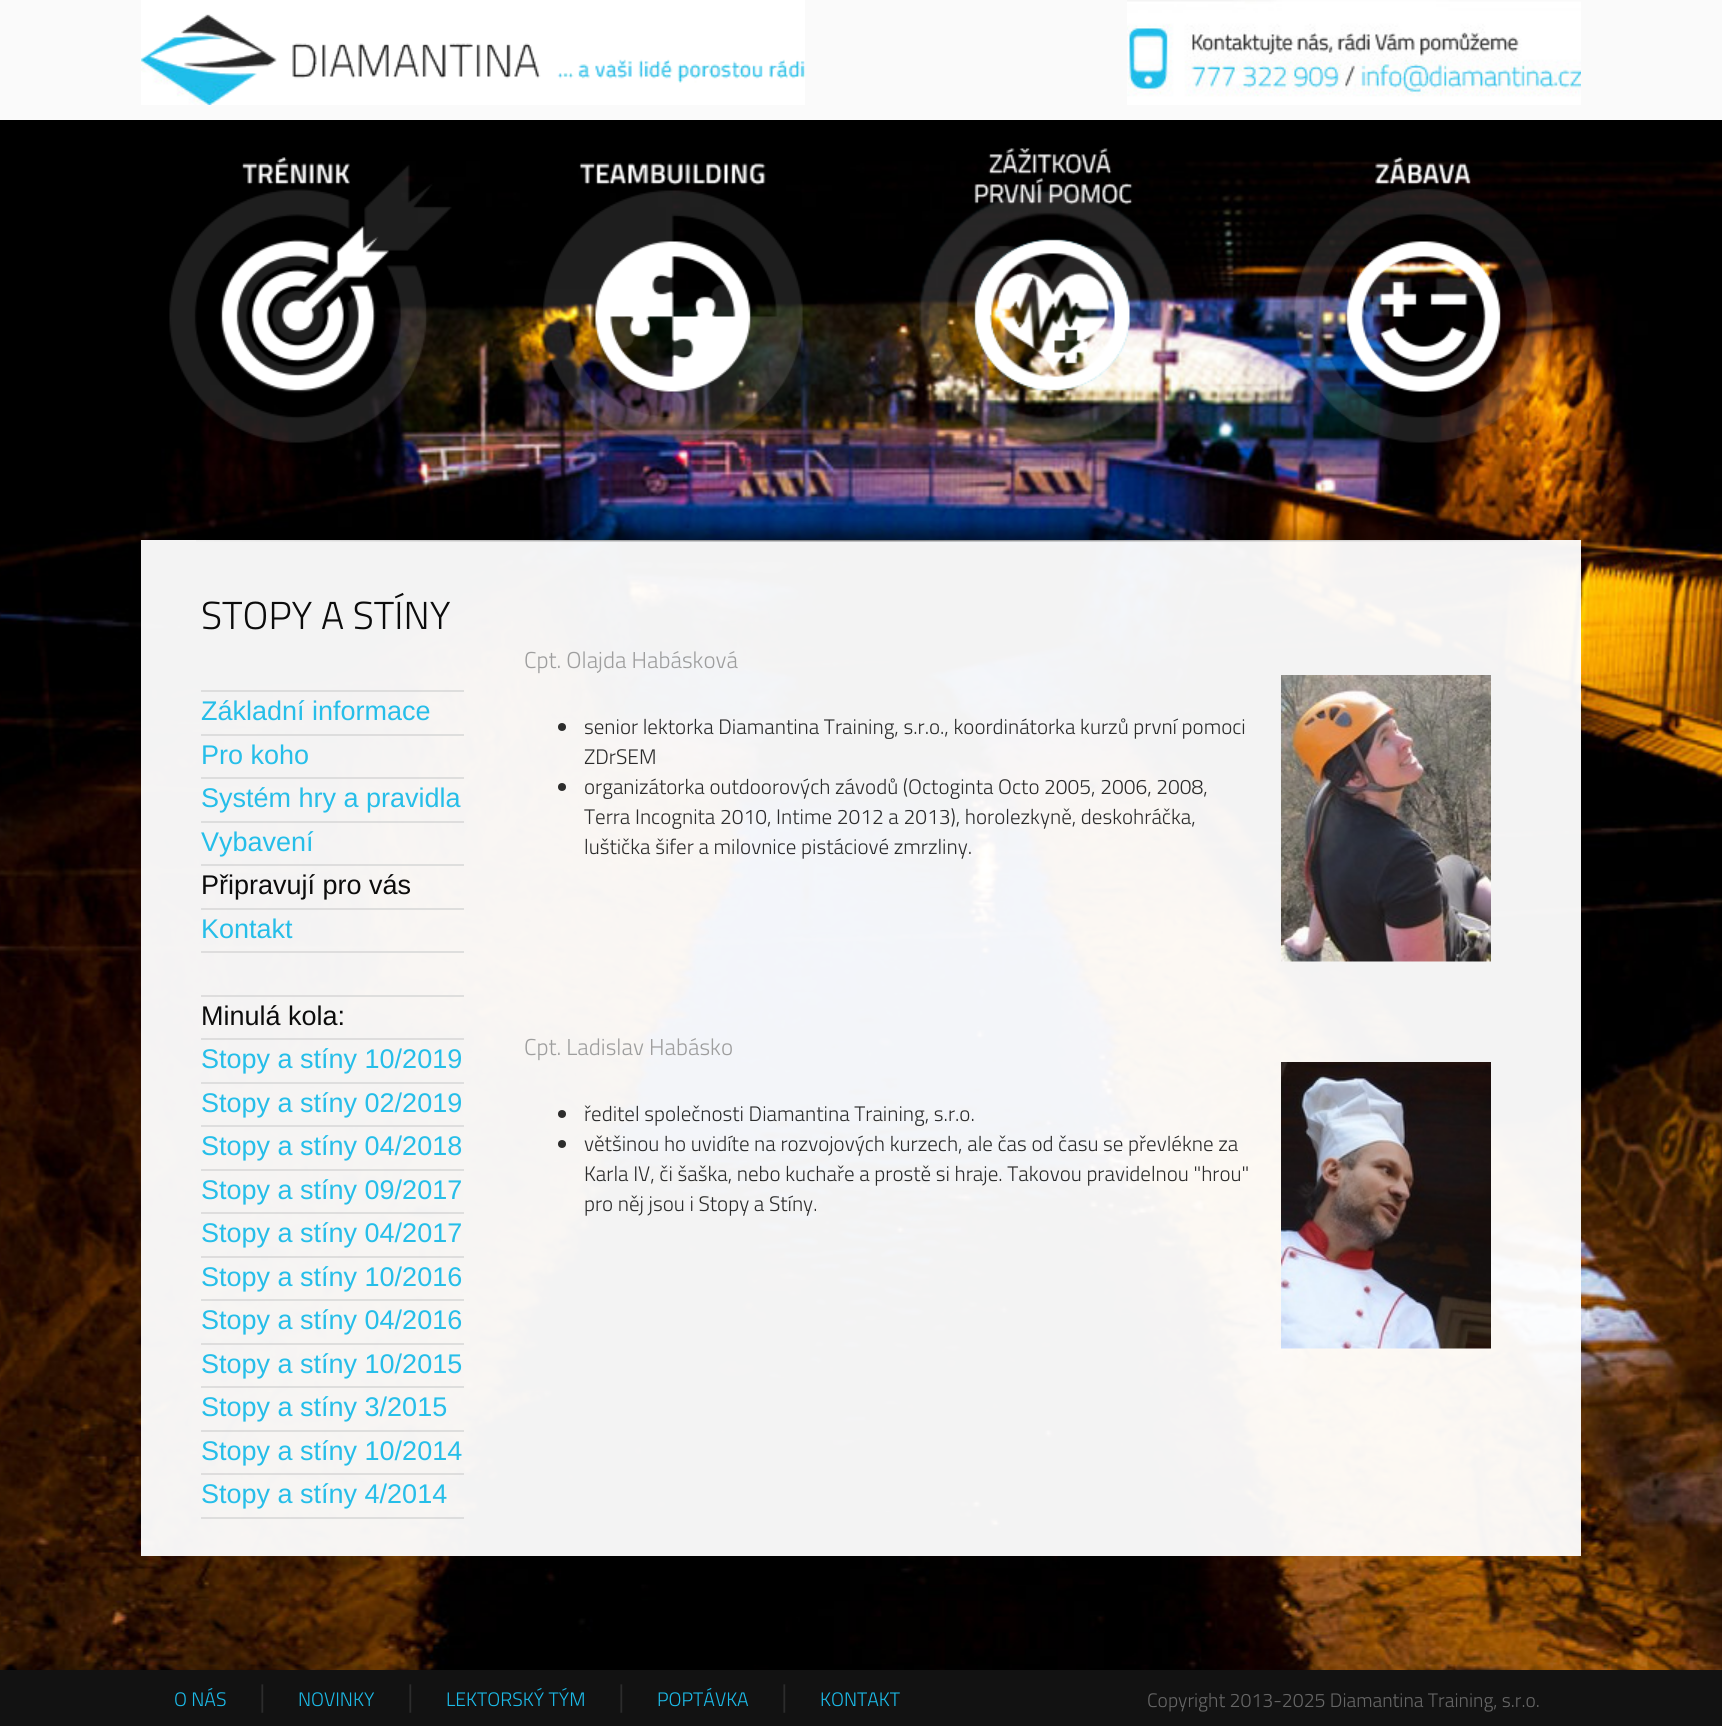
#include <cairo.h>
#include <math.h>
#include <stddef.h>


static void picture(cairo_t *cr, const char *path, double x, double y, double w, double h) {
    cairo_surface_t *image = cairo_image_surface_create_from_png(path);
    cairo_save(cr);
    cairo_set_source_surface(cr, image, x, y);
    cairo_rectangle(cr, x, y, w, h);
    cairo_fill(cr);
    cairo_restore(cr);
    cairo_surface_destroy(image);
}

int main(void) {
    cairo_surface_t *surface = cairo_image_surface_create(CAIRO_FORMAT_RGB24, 1722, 1726);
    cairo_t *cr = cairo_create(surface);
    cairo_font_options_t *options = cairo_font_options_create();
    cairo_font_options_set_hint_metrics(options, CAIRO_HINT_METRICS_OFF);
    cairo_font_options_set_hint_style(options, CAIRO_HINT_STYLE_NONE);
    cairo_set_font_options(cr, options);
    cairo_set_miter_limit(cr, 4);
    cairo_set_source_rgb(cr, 1, 1, 1);
    cairo_paint(cr);
    picture(cr, "img1.png", 0, 120, 1722, 1550);
    cairo_set_source_rgb(cr, 0.98, 0.98, 0.98);
    cairo_rectangle(cr, 0, 0, 1722, 120);
    cairo_fill(cr);
    picture(cr, "img2.png", 141, 0, 664, 105);
    picture(cr, "img3.png", 1127, 0, 454, 105);
    picture(cr, "img4.png", 169, 157, 283, 286);
    picture(cr, "img5.png", 543, 163, 260, 280);
    picture(cr, "img6.png", 919, 148, 257, 293);
    picture(cr, "img7.png", 1294, 157, 259, 286);
    cairo_set_source_rgba(cr, 1, 1, 1, 0.95);
    cairo_rectangle(cr, 141, 540, 1440, 1016);
    cairo_fill(cr);
    picture(cr, "img8.png", 196, 521, 1332, 21);
    cairo_select_font_face(cr, "Titillium Web Light", CAIRO_FONT_SLANT_NORMAL, CAIRO_FONT_WEIGHT_NORMAL);
    cairo_set_font_size(cr, 39);
    cairo_set_source_rgb(cr, 0.047, 0.047, 0.047);
    cairo_move_to(cr, 201, 629);
    cairo_show_text(cr, "STOPY A STÍNY");
    cairo_set_source_rgba(cr, 0.867, 0.867, 0.867, 0.95);
    cairo_rectangle(cr, 201, 690, 263, 2);
    cairo_fill(cr);
    cairo_rectangle(cr, 201, 734, 263, 2);
    cairo_fill(cr);
    cairo_select_font_face(cr, "Liberation Sans", CAIRO_FONT_SLANT_NORMAL, CAIRO_FONT_WEIGHT_NORMAL);
    cairo_set_font_size(cr, 27);
    cairo_set_source_rgb(cr, 0.149, 0.745, 0.914);
    cairo_move_to(cr, 201, 720);
    cairo_show_text(cr, "Základní informace");
    cairo_set_source_rgba(cr, 0.867, 0.867, 0.867, 0.95);
    cairo_rectangle(cr, 201, 777, 263, 2);
    cairo_fill(cr);
    cairo_set_source_rgb(cr, 0.149, 0.745, 0.914);
    cairo_move_to(cr, 201, 764);
    cairo_show_text(cr, "Pro koho");
    cairo_set_source_rgba(cr, 0.867, 0.867, 0.867, 0.95);
    cairo_rectangle(cr, 201, 821, 263, 2);
    cairo_fill(cr);
    cairo_set_source_rgb(cr, 0.149, 0.745, 0.914);
    cairo_move_to(cr, 201, 807);
    cairo_show_text(cr, "Systém hry a pravidla");
    cairo_set_source_rgba(cr, 0.867, 0.867, 0.867, 0.95);
    cairo_rectangle(cr, 201, 864, 263, 2);
    cairo_fill(cr);
    cairo_set_source_rgb(cr, 0.149, 0.745, 0.914);
    cairo_move_to(cr, 201, 851);
    cairo_show_text(cr, "Vybavení");
    cairo_set_source_rgba(cr, 0.867, 0.867, 0.867, 0.95);
    cairo_rectangle(cr, 201, 908, 263, 2);
    cairo_fill(cr);
    cairo_set_source_rgb(cr, 0.047, 0.047, 0.047);
    cairo_move_to(cr, 201, 894);
    cairo_show_text(cr, "Připravují pro vás");
    cairo_set_source_rgba(cr, 0.867, 0.867, 0.867, 0.95);
    cairo_rectangle(cr, 201, 951, 263, 2);
    cairo_fill(cr);
    cairo_set_source_rgb(cr, 0.149, 0.745, 0.914);
    cairo_move_to(cr, 201, 938);
    cairo_show_text(cr, "Kontakt");
    cairo_set_source_rgba(cr, 0.867, 0.867, 0.867, 0.95);
    cairo_rectangle(cr, 201, 995, 263, 2);
    cairo_fill(cr);
    cairo_rectangle(cr, 201, 1038, 263, 2);
    cairo_fill(cr);
    cairo_set_source_rgb(cr, 0.047, 0.047, 0.047);
    cairo_move_to(cr, 201, 1025);
    cairo_show_text(cr, "Minulá kola:");
    cairo_set_source_rgb(cr, 0.871, 0.871, 0.871);
    cairo_rectangle(cr, 201, 1082, 263, 2);
    cairo_fill(cr);
    cairo_set_source_rgb(cr, 0.149, 0.745, 0.914);
    cairo_move_to(cr, 201, 1068);
    cairo_show_text(cr, "Stopy a stíny 10/2019");
    cairo_set_source_rgb(cr, 0.871, 0.871, 0.871);
    cairo_rectangle(cr, 201, 1125, 263, 2);
    cairo_fill(cr);
    cairo_set_source_rgb(cr, 0.149, 0.745, 0.914);
    cairo_move_to(cr, 201, 1112);
    cairo_show_text(cr, "Stopy a stíny 02/2019");
    cairo_set_source_rgba(cr, 0.867, 0.867, 0.867, 0.95);
    cairo_rectangle(cr, 201, 1169, 263, 2);
    cairo_fill(cr);
    cairo_set_source_rgb(cr, 0.149, 0.745, 0.914);
    cairo_move_to(cr, 201, 1155);
    cairo_show_text(cr, "Stopy a stíny 04/2018");
    cairo_set_source_rgba(cr, 0.867, 0.867, 0.867, 0.95);
    cairo_rectangle(cr, 201, 1212, 263, 2);
    cairo_fill(cr);
    cairo_set_source_rgb(cr, 0.149, 0.745, 0.914);
    cairo_move_to(cr, 201, 1199);
    cairo_show_text(cr, "Stopy a stíny 09/2017");
    cairo_set_source_rgba(cr, 0.867, 0.867, 0.867, 0.95);
    cairo_rectangle(cr, 201, 1256, 263, 2);
    cairo_fill(cr);
    cairo_set_source_rgb(cr, 0.149, 0.745, 0.914);
    cairo_move_to(cr, 201, 1242);
    cairo_show_text(cr, "Stopy a stíny 04/2017");
    cairo_set_source_rgba(cr, 0.867, 0.867, 0.867, 0.95);
    cairo_rectangle(cr, 201, 1299, 263, 2);
    cairo_fill(cr);
    cairo_set_source_rgb(cr, 0.149, 0.745, 0.914);
    cairo_move_to(cr, 201, 1286);
    cairo_show_text(cr, "Stopy a stíny 10/2016");
    cairo_set_source_rgba(cr, 0.867, 0.867, 0.867, 0.95);
    cairo_rectangle(cr, 201, 1343, 263, 2);
    cairo_fill(cr);
    cairo_set_source_rgb(cr, 0.149, 0.745, 0.914);
    cairo_move_to(cr, 201, 1329);
    cairo_show_text(cr, "Stopy a stíny 04/2016");
    cairo_set_source_rgba(cr, 0.867, 0.867, 0.867, 0.95);
    cairo_rectangle(cr, 201, 1386, 263, 2);
    cairo_fill(cr);
    cairo_set_source_rgb(cr, 0.149, 0.745, 0.914);
    cairo_move_to(cr, 201, 1373);
    cairo_show_text(cr, "Stopy a stíny 10/2015");
    cairo_set_source_rgba(cr, 0.867, 0.867, 0.867, 0.95);
    cairo_rectangle(cr, 201, 1430, 263, 2);
    cairo_fill(cr);
    cairo_set_source_rgb(cr, 0.149, 0.745, 0.914);
    cairo_move_to(cr, 201, 1416);
    cairo_show_text(cr, "Stopy a stíny 3/2015");
    cairo_set_source_rgba(cr, 0.867, 0.867, 0.867, 0.95);
    cairo_rectangle(cr, 201, 1473, 263, 2);
    cairo_fill(cr);
    cairo_set_source_rgb(cr, 0.149, 0.745, 0.914);
    cairo_move_to(cr, 201, 1460);
    cairo_show_text(cr, "Stopy a stíny 10/2014");
    cairo_set_source_rgba(cr, 0.867, 0.867, 0.867, 0.95);
    cairo_rectangle(cr, 201, 1517, 263, 2);
    cairo_fill(cr);
    cairo_set_source_rgb(cr, 0.149, 0.745, 0.914);
    cairo_move_to(cr, 201, 1503);
    cairo_show_text(cr, "Stopy a stíny 4/2014");
    cairo_select_font_face(cr, "Titillium Web Light", CAIRO_FONT_SLANT_NORMAL, CAIRO_FONT_WEIGHT_NORMAL);
    cairo_set_font_size(cr, 23);
    cairo_set_source_rgb(cr, 0.62, 0.62, 0.62);
    cairo_move_to(cr, 524, 668);
    cairo_show_text(cr, "Cpt. Olajda Habásková");
    cairo_set_source_rgb(cr, 0.176, 0.176, 0.173);
    cairo_new_path(cr);
    cairo_arc(cr, 562, 727, 4, 0, 2 * M_PI);
    cairo_fill(cr);
    cairo_set_font_size(cr, 21);
    cairo_set_source_rgb(cr, 0.173, 0.173, 0.173);
    cairo_move_to(cr, 584, 734);
    cairo_show_text(cr, "senior lektorka Diamantina Training, s.r.o., koordinátorka kurzů první pomoci");
    cairo_move_to(cr, 584, 764);
    cairo_show_text(cr, "ZDrSEM");
    cairo_set_source_rgb(cr, 0.176, 0.176, 0.173);
    cairo_new_path(cr);
    cairo_arc(cr, 562, 787, 4, 0, 2 * M_PI);
    cairo_fill(cr);
    cairo_set_source_rgb(cr, 0.173, 0.173, 0.173);
    cairo_move_to(cr, 584, 794);
    cairo_show_text(cr, "organizátorka outdoorových závodů (Octoginta Octo 2005, 2006, 2008,");
    cairo_move_to(cr, 584, 824);
    cairo_show_text(cr, "Terra Incognita 2010, Intime 2012 a 2013), horolezkyně, deskohráčka,");
    cairo_move_to(cr, 584, 854);
    cairo_show_text(cr, "luštička šifer a milovnice pistáciové zmrzliny.");
    picture(cr, "img9.png", 1281, 675, 210, 287);
    cairo_set_font_size(cr, 23);
    cairo_set_source_rgb(cr, 0.62, 0.62, 0.62);
    cairo_move_to(cr, 524, 1055);
    cairo_show_text(cr, "Cpt. Ladislav Habásko");
    cairo_set_source_rgb(cr, 0.176, 0.176, 0.173);
    cairo_new_path(cr);
    cairo_arc(cr, 562, 1114, 4, 0, 2 * M_PI);
    cairo_fill(cr);
    cairo_set_font_size(cr, 21);
    cairo_set_source_rgb(cr, 0.173, 0.173, 0.173);
    cairo_move_to(cr, 584, 1121);
    cairo_show_text(cr, "ředitel společnosti Diamantina Training, s.r.o.");
    cairo_set_source_rgb(cr, 0.176, 0.176, 0.173);
    cairo_new_path(cr);
    cairo_arc(cr, 562, 1144, 4, 0, 2 * M_PI);
    cairo_fill(cr);
    cairo_set_source_rgb(cr, 0.173, 0.173, 0.173);
    cairo_move_to(cr, 584, 1151);
    cairo_show_text(cr, "většinou ho uvidíte na rozvojových kurzech, ale čas od času se převlékne za");
    cairo_move_to(cr, 584, 1181);
    cairo_show_text(cr, "Karla IV, či šaška, nebo kuchaře a prostě si hraje. Takovou pravidelnou \"hrou\"");
    cairo_move_to(cr, 584, 1211);
    cairo_show_text(cr, "pro něj jsou i Stopy a Stíny.");
    picture(cr, "img10.png", 1281, 1062, 210, 287);
    cairo_set_source_rgb(cr, 0.071, 0.071, 0.071);
    cairo_rectangle(cr, 0, 1670, 1722, 56);
    cairo_fill(cr);
    cairo_set_font_size(cr, 19.5);
    cairo_set_source_rgb(cr, 0.106, 0.733, 0.914);
    cairo_move_to(cr, 174, 1706);
    cairo_show_text(cr, "O NÁS");
    cairo_set_font_size(cr, 30);
    cairo_set_source_rgb(cr, 0.173, 0.173, 0.173);
    cairo_move_to(cr, 259, 1706);
    cairo_show_text(cr, "|");
    cairo_set_font_size(cr, 19.5);
    cairo_set_source_rgb(cr, 0.106, 0.733, 0.914);
    cairo_move_to(cr, 298, 1706);
    cairo_show_text(cr, "NOVINKY");
    cairo_set_font_size(cr, 30);
    cairo_set_source_rgb(cr, 0.173, 0.173, 0.173);
    cairo_move_to(cr, 407, 1706);
    cairo_show_text(cr, "|");
    cairo_set_font_size(cr, 19.5);
    cairo_set_source_rgb(cr, 0.106, 0.733, 0.914);
    cairo_move_to(cr, 446, 1706);
    cairo_show_text(cr, "LEKTORSKÝ TÝM");
    cairo_set_font_size(cr, 30);
    cairo_set_source_rgb(cr, 0.173, 0.173, 0.173);
    cairo_move_to(cr, 618, 1706);
    cairo_show_text(cr, "|");
    cairo_set_font_size(cr, 19.5);
    cairo_set_source_rgb(cr, 0.106, 0.733, 0.914);
    cairo_move_to(cr, 657, 1706);
    cairo_show_text(cr, "POPTÁVKA");
    cairo_set_font_size(cr, 30);
    cairo_set_source_rgb(cr, 0.173, 0.173, 0.173);
    cairo_move_to(cr, 781, 1706);
    cairo_show_text(cr, "|");
    cairo_set_font_size(cr, 19.5);
    cairo_set_source_rgb(cr, 0.106, 0.733, 0.914);
    cairo_move_to(cr, 820, 1706);
    cairo_show_text(cr, "KONTAKT");
    cairo_set_source_rgb(cr, 0.4, 0.4, 0.4);
    cairo_move_to(cr, 1147, 1707);
    cairo_show_text(cr, "Copyright 2013-2025 Diamantina Training, s.r.o.");
    cairo_surface_write_to_png(surface, "page.png");
    cairo_font_options_destroy(options);
    cairo_destroy(cr);
    cairo_surface_destroy(surface);
    return 0;
}
